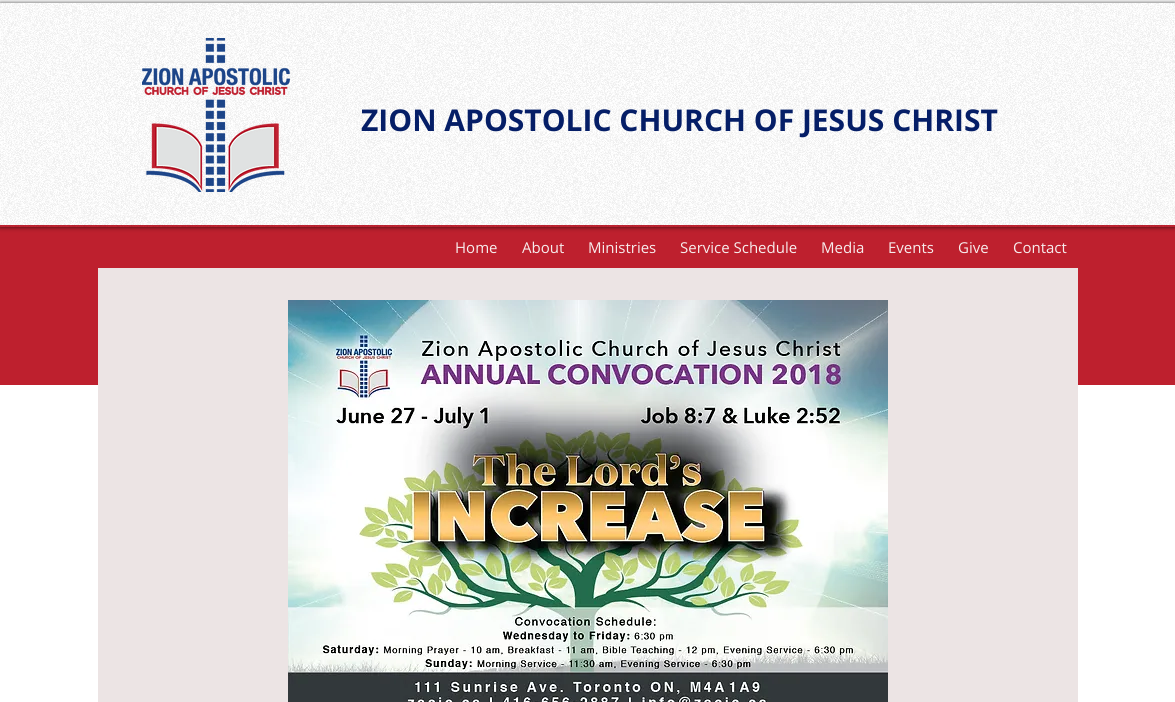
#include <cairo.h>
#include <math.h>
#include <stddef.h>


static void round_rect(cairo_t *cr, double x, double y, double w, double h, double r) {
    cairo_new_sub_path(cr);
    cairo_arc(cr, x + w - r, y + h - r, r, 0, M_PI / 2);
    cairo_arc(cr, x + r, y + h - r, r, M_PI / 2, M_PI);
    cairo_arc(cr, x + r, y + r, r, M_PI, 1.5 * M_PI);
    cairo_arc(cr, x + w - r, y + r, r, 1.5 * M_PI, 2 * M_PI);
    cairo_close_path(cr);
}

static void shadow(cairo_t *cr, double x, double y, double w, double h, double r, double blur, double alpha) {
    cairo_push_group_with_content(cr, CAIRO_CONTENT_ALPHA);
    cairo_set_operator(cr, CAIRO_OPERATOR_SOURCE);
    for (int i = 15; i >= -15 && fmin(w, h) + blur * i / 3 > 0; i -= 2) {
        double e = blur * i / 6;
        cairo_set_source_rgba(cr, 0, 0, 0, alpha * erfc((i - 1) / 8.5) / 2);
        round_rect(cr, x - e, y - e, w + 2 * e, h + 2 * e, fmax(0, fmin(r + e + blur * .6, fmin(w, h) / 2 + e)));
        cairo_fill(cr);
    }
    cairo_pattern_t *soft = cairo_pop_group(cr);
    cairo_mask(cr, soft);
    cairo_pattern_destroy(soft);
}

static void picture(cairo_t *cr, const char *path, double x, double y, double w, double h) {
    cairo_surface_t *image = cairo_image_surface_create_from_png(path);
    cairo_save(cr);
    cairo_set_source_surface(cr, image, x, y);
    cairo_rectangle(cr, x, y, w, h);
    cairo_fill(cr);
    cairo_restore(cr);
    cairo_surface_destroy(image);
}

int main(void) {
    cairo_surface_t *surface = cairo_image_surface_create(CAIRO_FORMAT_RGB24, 1175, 702);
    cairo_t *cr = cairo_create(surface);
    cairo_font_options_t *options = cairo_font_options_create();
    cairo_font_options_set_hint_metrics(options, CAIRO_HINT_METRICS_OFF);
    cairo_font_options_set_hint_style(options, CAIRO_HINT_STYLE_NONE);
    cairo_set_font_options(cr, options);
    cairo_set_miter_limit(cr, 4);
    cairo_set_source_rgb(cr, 1, 1, 1);
    cairo_paint(cr);
    cairo_set_source_rgb(cr, 0.745, 0.125, 0.18);
    cairo_rectangle(cr, 0, 227, 1175, 158);
    cairo_fill(cr);
    cairo_set_source_rgb(cr, 0.749, 0.133, 0.188);
    cairo_rectangle(cr, 0, 225, 1175, 2);
    cairo_fill(cr);
    cairo_save(cr);
    cairo_set_fill_rule(cr, CAIRO_FILL_RULE_EVEN_ODD);
    cairo_new_path(cr);
    cairo_move_to(cr, 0, 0);
    cairo_line_to(cr, 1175, 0);
    cairo_line_to(cr, 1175, 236);
    cairo_line_to(cr, 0, 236);
    cairo_close_path(cr);
    cairo_move_to(cr, 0, 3);
    cairo_line_to(cr, 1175, 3);
    cairo_line_to(cr, 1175, 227);
    cairo_line_to(cr, 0, 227);
    cairo_close_path(cr);
    cairo_clip(cr);
    cairo_set_source_rgb(cr, 0, 0, 0);
    shadow(cr, 0, 3, 1175, 224, 0, 2.5, 0.7);
    cairo_restore(cr);
    picture(cr, "img1.png", 0, 3, 1175, 224);
    picture(cr, "img2.png", 142, 38, 148, 154);
    cairo_select_font_face(cr, "Open Sans", CAIRO_FONT_SLANT_NORMAL, CAIRO_FONT_WEIGHT_BOLD);
    cairo_set_font_size(cr, 30);
    cairo_set_source_rgb(cr, 0.02, 0.118, 0.404);
    cairo_move_to(cr, 361, 131);
    cairo_show_text(cr, "ZION APOSTOLIC CHURCH OF JESUS CHRIST");
    cairo_select_font_face(cr, "Open Sans", CAIRO_FONT_SLANT_NORMAL, CAIRO_FONT_WEIGHT_NORMAL);
    cairo_set_font_size(cr, 15);
    cairo_set_source_rgb(cr, 0.965, 0.925, 0.925);
    cairo_move_to(cr, 455, 253);
    cairo_show_text(cr, "Home");
    cairo_move_to(cr, 522, 253);
    cairo_show_text(cr, "About");
    cairo_move_to(cr, 588, 253);
    cairo_show_text(cr, "Ministries");
    cairo_move_to(cr, 680, 253);
    cairo_show_text(cr, "Service Schedule");
    cairo_move_to(cr, 821, 253);
    cairo_show_text(cr, "Media");
    cairo_move_to(cr, 888, 253);
    cairo_show_text(cr, "Events");
    cairo_move_to(cr, 958, 253);
    cairo_show_text(cr, "Give");
    cairo_move_to(cr, 1013, 253);
    cairo_show_text(cr, "Contact");
    cairo_set_source_rgb(cr, 0.925, 0.894, 0.894);
    cairo_rectangle(cr, 98, 268, 980, 434);
    cairo_fill(cr);
    picture(cr, "img3.png", 288, 300, 600, 402);
    cairo_surface_write_to_png(surface, "page.png");
    cairo_font_options_destroy(options);
    cairo_destroy(cr);
    cairo_surface_destroy(surface);
    return 0;
}
